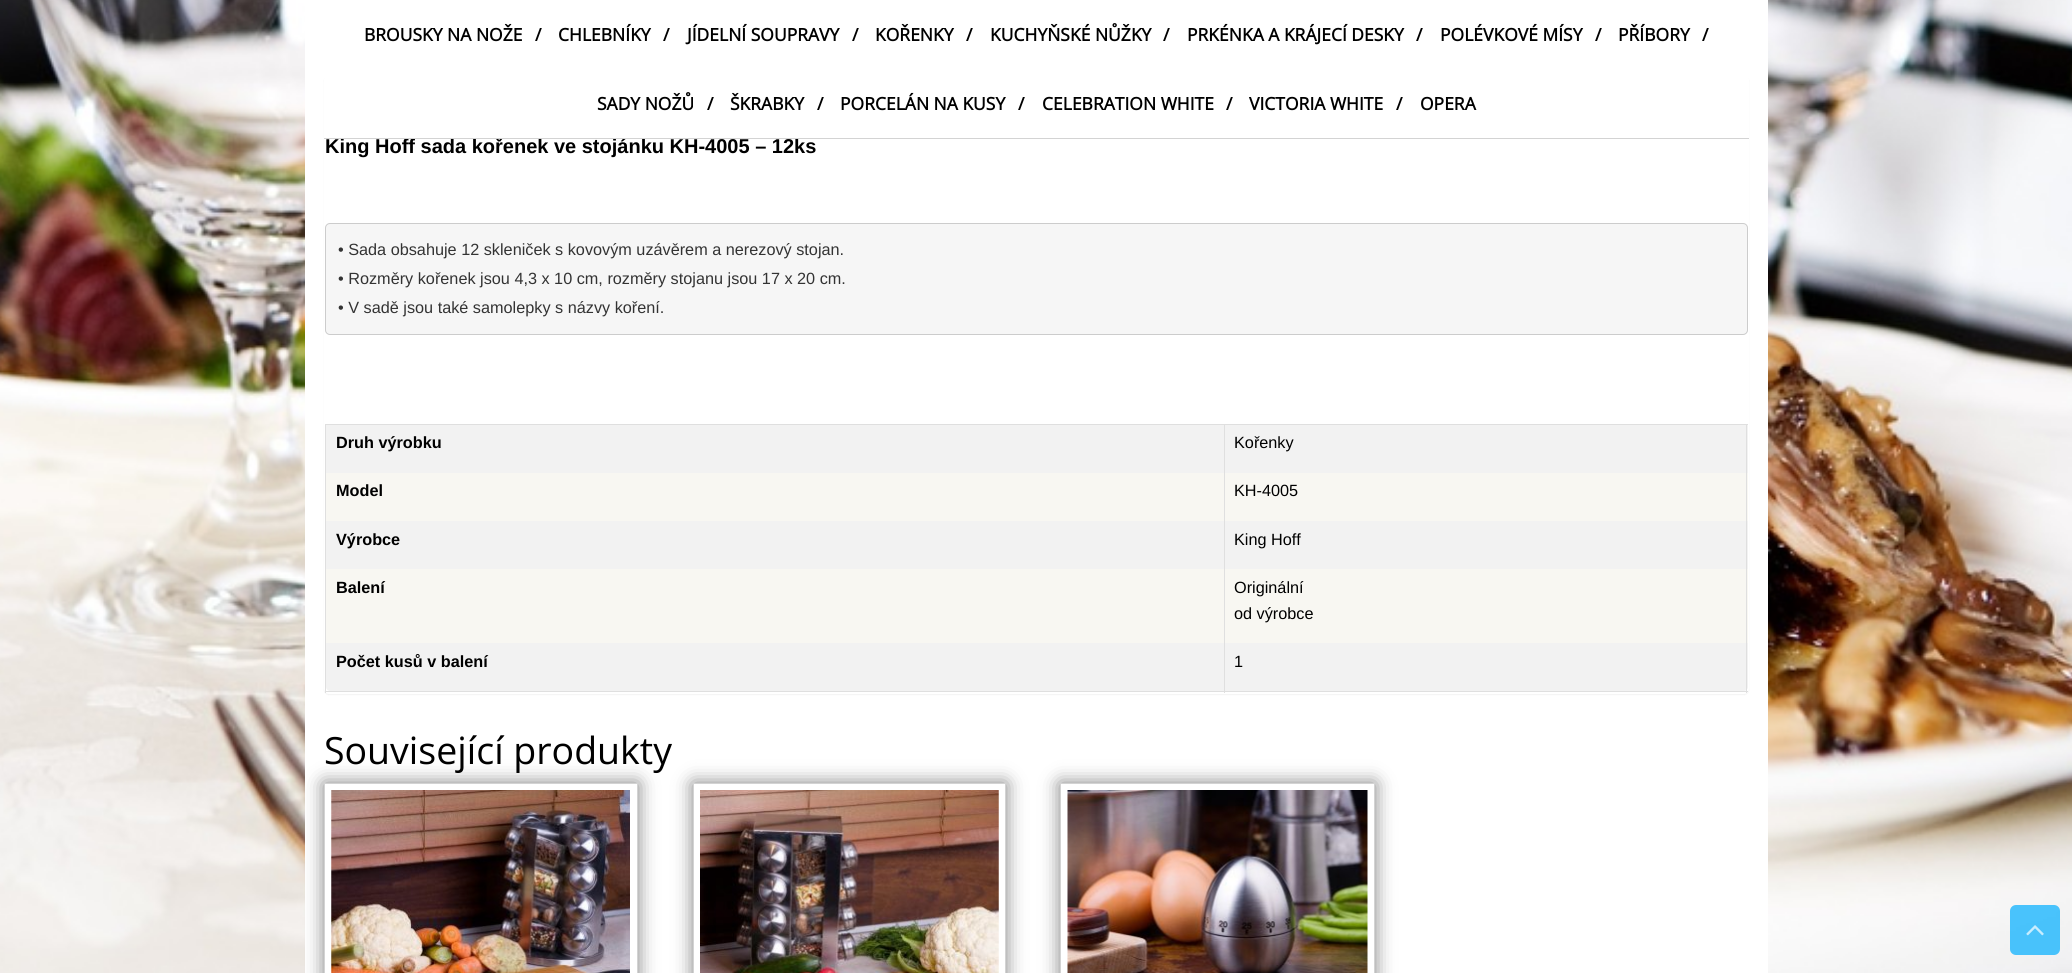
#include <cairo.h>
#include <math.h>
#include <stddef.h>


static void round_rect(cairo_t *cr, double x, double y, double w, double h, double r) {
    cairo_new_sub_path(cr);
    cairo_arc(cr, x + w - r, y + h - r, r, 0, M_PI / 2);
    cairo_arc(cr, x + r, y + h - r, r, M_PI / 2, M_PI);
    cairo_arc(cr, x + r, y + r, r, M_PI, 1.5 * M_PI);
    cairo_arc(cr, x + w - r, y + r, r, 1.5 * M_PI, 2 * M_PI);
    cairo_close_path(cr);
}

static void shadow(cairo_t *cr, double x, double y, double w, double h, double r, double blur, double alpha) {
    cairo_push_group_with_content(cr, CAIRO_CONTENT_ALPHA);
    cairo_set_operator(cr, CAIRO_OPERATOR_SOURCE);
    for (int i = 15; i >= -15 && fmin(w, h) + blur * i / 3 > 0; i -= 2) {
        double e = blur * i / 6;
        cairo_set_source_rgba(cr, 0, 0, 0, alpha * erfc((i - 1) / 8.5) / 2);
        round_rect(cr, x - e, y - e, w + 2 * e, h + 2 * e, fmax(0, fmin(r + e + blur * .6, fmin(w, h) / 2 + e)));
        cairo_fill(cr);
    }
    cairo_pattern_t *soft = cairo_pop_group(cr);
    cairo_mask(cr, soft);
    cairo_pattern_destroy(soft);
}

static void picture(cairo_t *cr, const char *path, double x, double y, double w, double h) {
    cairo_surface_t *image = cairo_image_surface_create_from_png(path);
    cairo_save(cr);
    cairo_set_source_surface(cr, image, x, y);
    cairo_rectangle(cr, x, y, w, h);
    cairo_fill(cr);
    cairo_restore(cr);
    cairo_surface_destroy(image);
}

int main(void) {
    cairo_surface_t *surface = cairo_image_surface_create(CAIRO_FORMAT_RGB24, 2072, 973);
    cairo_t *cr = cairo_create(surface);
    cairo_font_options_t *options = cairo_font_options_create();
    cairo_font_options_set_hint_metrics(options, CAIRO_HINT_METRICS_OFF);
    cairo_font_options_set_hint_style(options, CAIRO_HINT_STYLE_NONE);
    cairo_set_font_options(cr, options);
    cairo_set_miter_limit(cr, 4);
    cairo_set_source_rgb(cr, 1, 1, 1);
    cairo_paint(cr);
    picture(cr, "img1.png", 0, 0, 2072, 973);
    cairo_set_source_rgb(cr, 1, 1, 1);
    cairo_rectangle(cr, 305, 0, 1463, 973);
    cairo_fill(cr);
    cairo_set_source_rgb(cr, 0, 0, 0);
    shadow(cr, 324, 76, 1425, 619, 5, 0.5, 0.05);
    cairo_set_source_rgb(cr, 1, 1, 1);
    round_rect(cr, 324, 75, 1425, 619, 5);
    cairo_fill(cr);
    cairo_select_font_face(cr, "Liberation Sans", CAIRO_FONT_SLANT_NORMAL, CAIRO_FONT_WEIGHT_BOLD);
    cairo_set_font_size(cr, 20);
    cairo_set_source_rgb(cr, 0, 0, 0);
    cairo_move_to(cr, 325, 153);
    cairo_show_text(cr, "King Hoff sada kořenek ve stojánku KH-4005 – 12ks");
    cairo_set_source_rgb(cr, 0.827, 0.827, 0.827);
    cairo_rectangle(cr, 324, 138, 1425, 1);
    cairo_fill(cr);
    cairo_select_font_face(cr, "Open Sans", CAIRO_FONT_SLANT_NORMAL, CAIRO_FONT_WEIGHT_BOLD);
    cairo_set_font_size(cr, 17.5);
    cairo_set_source_rgb(cr, 0, 0, 0);
    cairo_move_to(cr, 364, 41);
    cairo_show_text(cr, "BROUSKY NA NOŽE");
    cairo_move_to(cr, 535, 41);
    cairo_show_text(cr, "/");
    cairo_move_to(cr, 558, 41);
    cairo_show_text(cr, "CHLEBNÍKY");
    cairo_move_to(cr, 663, 41);
    cairo_show_text(cr, "/");
    cairo_move_to(cr, 687, 41);
    cairo_show_text(cr, "JÍDELNÍ SOUPRAVY");
    cairo_move_to(cr, 852, 41);
    cairo_show_text(cr, "/");
    cairo_move_to(cr, 875, 41);
    cairo_show_text(cr, "KOŘENKY");
    cairo_move_to(cr, 966, 41);
    cairo_show_text(cr, "/");
    cairo_move_to(cr, 990, 41);
    cairo_show_text(cr, "KUCHYŇSKÉ NŮŽKY");
    cairo_move_to(cr, 1163, 41);
    cairo_show_text(cr, "/");
    cairo_move_to(cr, 1187, 41);
    cairo_show_text(cr, "PRKÉNKA A KRÁJECÍ DESKY");
    cairo_move_to(cr, 1416, 41);
    cairo_show_text(cr, "/");
    cairo_move_to(cr, 1440, 41);
    cairo_show_text(cr, "POLÉVKOVÉ MÍSY");
    cairo_move_to(cr, 1595, 41);
    cairo_show_text(cr, "/");
    cairo_move_to(cr, 1618, 41);
    cairo_show_text(cr, "PŘÍBORY");
    cairo_move_to(cr, 1702, 41);
    cairo_show_text(cr, "/");
    cairo_move_to(cr, 597, 110);
    cairo_show_text(cr, "SADY NOŽŮ");
    cairo_move_to(cr, 707, 110);
    cairo_show_text(cr, "/");
    cairo_move_to(cr, 730, 110);
    cairo_show_text(cr, "ŠKRABKY");
    cairo_move_to(cr, 817, 110);
    cairo_show_text(cr, "/");
    cairo_move_to(cr, 840, 110);
    cairo_show_text(cr, "PORCELÁN NA KUSY");
    cairo_move_to(cr, 1018, 110);
    cairo_show_text(cr, "/");
    cairo_move_to(cr, 1042, 110);
    cairo_show_text(cr, "CELEBRATION WHITE");
    cairo_move_to(cr, 1226, 110);
    cairo_show_text(cr, "/");
    cairo_move_to(cr, 1249, 110);
    cairo_show_text(cr, "VICTORIA WHITE");
    cairo_move_to(cr, 1396, 110);
    cairo_show_text(cr, "/");
    cairo_move_to(cr, 1420, 110);
    cairo_show_text(cr, "OPERA");
    cairo_set_source_rgb(cr, 0.961, 0.961, 0.961);
    round_rect(cr, 325.5, 223.5, 1422, 111, 4.5);
    cairo_fill_preserve(cr);
    cairo_set_source_rgb(cr, 0.8, 0.8, 0.8);
    cairo_set_line_width(cr, 1);
    cairo_stroke(cr);
    cairo_select_font_face(cr, "Liberation Sans", CAIRO_FONT_SLANT_NORMAL, CAIRO_FONT_WEIGHT_NORMAL);
    cairo_set_font_size(cr, 16.25);
    cairo_set_source_rgb(cr, 0.2, 0.2, 0.2);
    cairo_move_to(cr, 338, 255);
    cairo_show_text(cr, "• Sada obsahuje 12 skleniček s kovovým uzávěrem a nerezový stojan.");
    cairo_move_to(cr, 338, 284);
    cairo_show_text(cr, "• Rozměry kořenek jsou 4,3 x 10 cm, rozměry stojanu jsou 17 x 20 cm.");
    cairo_move_to(cr, 338, 313);
    cairo_show_text(cr, "• V sadě jsou také samolepky s názvy koření.");
    cairo_set_source_rgb(cr, 0.875, 0.875, 0.875);
    cairo_rectangle(cr, 325, 424, 1423, 1);
    cairo_fill(cr);
    cairo_set_source_rgb(cr, 0.949, 0.949, 0.949);
    cairo_rectangle(cr, 326, 425, 1422, 48);
    cairo_fill(cr);
    cairo_set_source_rgb(cr, 0.969, 0.965, 0.949);
    cairo_rectangle(cr, 1225, 473, 523, 48);
    cairo_fill(cr);
    cairo_set_source_rgb(cr, 0.949, 0.949, 0.949);
    cairo_rectangle(cr, 326, 521, 1422, 48);
    cairo_fill(cr);
    cairo_set_source_rgb(cr, 0.969, 0.965, 0.949);
    cairo_rectangle(cr, 1225, 569, 523, 74);
    cairo_fill(cr);
    cairo_set_source_rgb(cr, 0.949, 0.949, 0.949);
    cairo_new_path(cr);
    cairo_move_to(cr, 326, 643);
    cairo_line_to(cr, 1748, 643);
    cairo_line_to(cr, 1748, 687);
    cairo_curve_to(cr, 1748, 689, 1746, 691, 1744, 691);
    cairo_line_to(cr, 330, 691);
    cairo_curve_to(cr, 328, 691, 326, 689, 326, 687);
    cairo_close_path(cr);
    cairo_fill(cr);
    cairo_set_source_rgb(cr, 0.875, 0.875, 0.875);
    cairo_rectangle(cr, 1746, 424, 1, 269);
    cairo_fill(cr);
    cairo_rectangle(cr, 325, 691, 1423, 1);
    cairo_fill(cr);
    cairo_rectangle(cr, 325, 424, 1, 269);
    cairo_fill(cr);
    cairo_select_font_face(cr, "Liberation Sans", CAIRO_FONT_SLANT_NORMAL, CAIRO_FONT_WEIGHT_BOLD);
    cairo_set_source_rgb(cr, 0, 0, 0);
    cairo_move_to(cr, 336, 448);
    cairo_show_text(cr, "Druh výrobku");
    cairo_select_font_face(cr, "Liberation Sans", CAIRO_FONT_SLANT_NORMAL, CAIRO_FONT_WEIGHT_NORMAL);
    cairo_move_to(cr, 1234, 448);
    cairo_show_text(cr, "Kořenky");
    cairo_set_source_rgb(cr, 0.969, 0.965, 0.949);
    cairo_rectangle(cr, 326, 473, 898, 48);
    cairo_fill(cr);
    cairo_select_font_face(cr, "Liberation Sans", CAIRO_FONT_SLANT_NORMAL, CAIRO_FONT_WEIGHT_BOLD);
    cairo_set_source_rgb(cr, 0, 0, 0);
    cairo_move_to(cr, 336, 496);
    cairo_show_text(cr, "Model");
    cairo_select_font_face(cr, "Liberation Sans", CAIRO_FONT_SLANT_NORMAL, CAIRO_FONT_WEIGHT_NORMAL);
    cairo_move_to(cr, 1234, 496);
    cairo_show_text(cr, "KH-4005");
    cairo_select_font_face(cr, "Liberation Sans", CAIRO_FONT_SLANT_NORMAL, CAIRO_FONT_WEIGHT_BOLD);
    cairo_move_to(cr, 336, 545);
    cairo_show_text(cr, "Výrobce");
    cairo_select_font_face(cr, "Liberation Sans", CAIRO_FONT_SLANT_NORMAL, CAIRO_FONT_WEIGHT_NORMAL);
    cairo_move_to(cr, 1234, 545);
    cairo_show_text(cr, "King Hoff");
    cairo_set_source_rgb(cr, 0.969, 0.965, 0.949);
    cairo_rectangle(cr, 326, 569, 898, 74);
    cairo_fill(cr);
    cairo_select_font_face(cr, "Liberation Sans", CAIRO_FONT_SLANT_NORMAL, CAIRO_FONT_WEIGHT_BOLD);
    cairo_set_source_rgb(cr, 0, 0, 0);
    cairo_move_to(cr, 336, 593);
    cairo_show_text(cr, "Balení");
    cairo_select_font_face(cr, "Liberation Sans", CAIRO_FONT_SLANT_NORMAL, CAIRO_FONT_WEIGHT_NORMAL);
    cairo_move_to(cr, 1234, 593);
    cairo_show_text(cr, "Originální");
    cairo_move_to(cr, 1234, 619);
    cairo_show_text(cr, "od výrobce");
    cairo_set_source_rgb(cr, 0.875, 0.875, 0.875);
    cairo_rectangle(cr, 1224, 424, 1, 269);
    cairo_fill(cr);
    cairo_select_font_face(cr, "Liberation Sans", CAIRO_FONT_SLANT_NORMAL, CAIRO_FONT_WEIGHT_BOLD);
    cairo_set_source_rgb(cr, 0, 0, 0);
    cairo_move_to(cr, 336, 667);
    cairo_show_text(cr, "Počet kusů v balení");
    cairo_select_font_face(cr, "Liberation Sans", CAIRO_FONT_SLANT_NORMAL, CAIRO_FONT_WEIGHT_NORMAL);
    cairo_move_to(cr, 1234, 667);
    cairo_show_text(cr, "1");
    cairo_select_font_face(cr, "Open Sans", CAIRO_FONT_SLANT_NORMAL, CAIRO_FONT_WEIGHT_NORMAL);
    cairo_set_font_size(cr, 37.5);
    cairo_move_to(cr, 324, 764);
    cairo_show_text(cr, "Související produkty");
    cairo_save(cr);
    cairo_set_fill_rule(cr, CAIRO_FILL_RULE_EVEN_ODD);
    cairo_new_path(cr);
    cairo_move_to(cr, 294, 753);
    cairo_line_to(cr, 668, 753);
    cairo_line_to(cr, 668, 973);
    cairo_line_to(cr, 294, 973);
    cairo_close_path(cr);
    cairo_move_to(cr, 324, 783);
    cairo_line_to(cr, 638, 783);
    cairo_line_to(cr, 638, 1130);
    cairo_line_to(cr, 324, 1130);
    cairo_close_path(cr);
    cairo_clip(cr);
    cairo_set_source_rgb(cr, 0, 0, 0);
    shadow(cr, 324, 783, 314, 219, 0, 9.5, 0.5);
    cairo_restore(cr);
    cairo_rectangle(cr, 324.5, 783.5, 313, 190);
    cairo_set_source_rgb(cr, 0.827, 0.827, 0.827);
    cairo_stroke(cr);
    picture(cr, "img2.png", 331, 790, 299, 183);
    cairo_save(cr);
    cairo_set_fill_rule(cr, CAIRO_FILL_RULE_EVEN_ODD);
    cairo_new_path(cr);
    cairo_move_to(cr, 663, 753);
    cairo_line_to(cr, 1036, 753);
    cairo_line_to(cr, 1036, 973);
    cairo_line_to(cr, 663, 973);
    cairo_close_path(cr);
    cairo_move_to(cr, 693, 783);
    cairo_line_to(cr, 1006, 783);
    cairo_line_to(cr, 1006, 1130);
    cairo_line_to(cr, 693, 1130);
    cairo_close_path(cr);
    cairo_clip(cr);
    cairo_set_source_rgb(cr, 0, 0, 0);
    shadow(cr, 693, 783, 313, 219, 0, 9.5, 0.5);
    cairo_restore(cr);
    cairo_rectangle(cr, 693.5, 783.5, 312, 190);
    cairo_stroke(cr);
    picture(cr, "img3.png", 700, 790, 299, 183);
    cairo_save(cr);
    cairo_set_fill_rule(cr, CAIRO_FILL_RULE_EVEN_ODD);
    cairo_new_path(cr);
    cairo_move_to(cr, 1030, 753);
    cairo_line_to(cr, 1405, 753);
    cairo_line_to(cr, 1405, 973);
    cairo_line_to(cr, 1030, 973);
    cairo_close_path(cr);
    cairo_move_to(cr, 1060, 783);
    cairo_line_to(cr, 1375, 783);
    cairo_line_to(cr, 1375, 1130);
    cairo_line_to(cr, 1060, 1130);
    cairo_close_path(cr);
    cairo_clip(cr);
    cairo_set_source_rgb(cr, 0, 0, 0);
    shadow(cr, 1060, 783, 315, 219, 0, 9.5, 0.5);
    cairo_restore(cr);
    cairo_rectangle(cr, 1060.5, 783.5, 314, 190);
    cairo_stroke(cr);
    picture(cr, "img4.png", 1067, 790, 301, 183);
    cairo_set_source_rgba(cr, 0, 0.682, 1, 0.7);
    round_rect(cr, 2010, 905, 50, 50, 6);
    cairo_fill(cr);
    picture(cr, "img5.png", 2026, 925, 18, 11);
    cairo_surface_write_to_png(surface, "page.png");
    cairo_font_options_destroy(options);
    cairo_destroy(cr);
    cairo_surface_destroy(surface);
    return 0;
}
